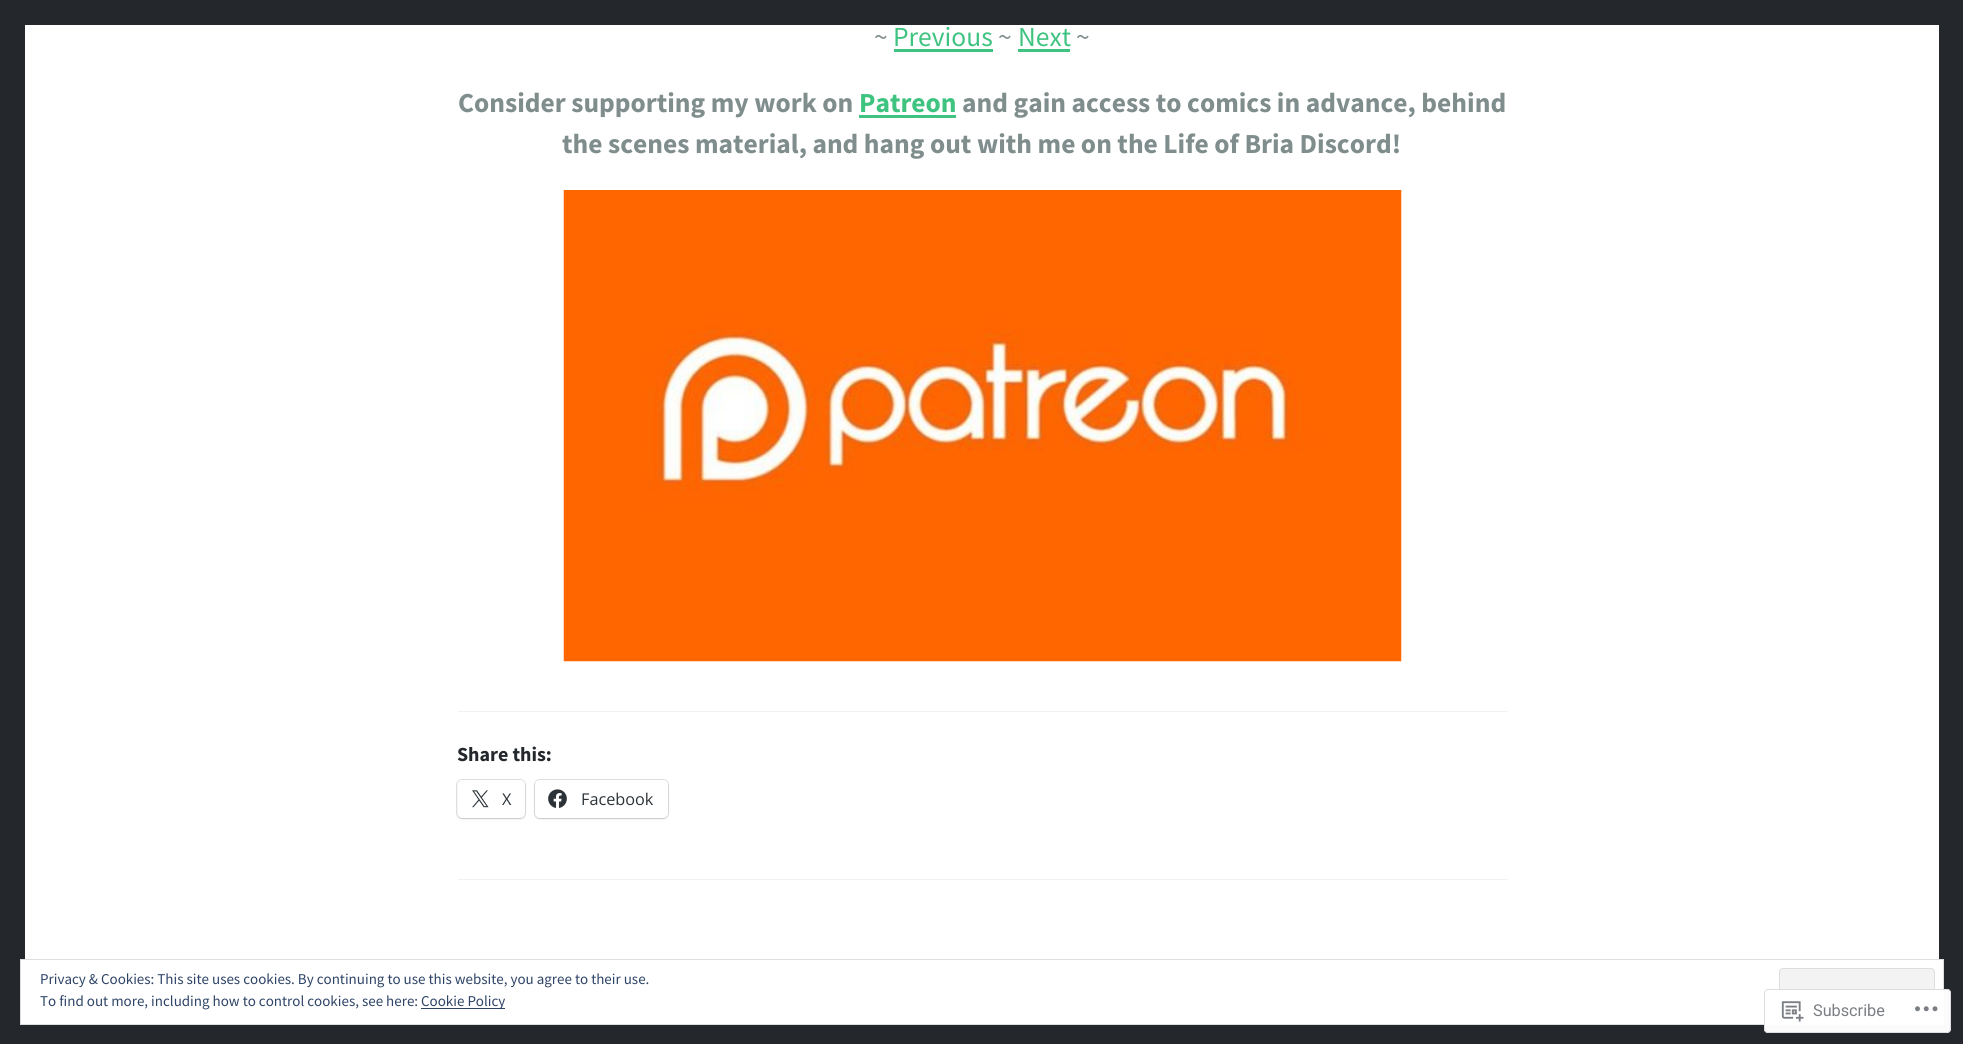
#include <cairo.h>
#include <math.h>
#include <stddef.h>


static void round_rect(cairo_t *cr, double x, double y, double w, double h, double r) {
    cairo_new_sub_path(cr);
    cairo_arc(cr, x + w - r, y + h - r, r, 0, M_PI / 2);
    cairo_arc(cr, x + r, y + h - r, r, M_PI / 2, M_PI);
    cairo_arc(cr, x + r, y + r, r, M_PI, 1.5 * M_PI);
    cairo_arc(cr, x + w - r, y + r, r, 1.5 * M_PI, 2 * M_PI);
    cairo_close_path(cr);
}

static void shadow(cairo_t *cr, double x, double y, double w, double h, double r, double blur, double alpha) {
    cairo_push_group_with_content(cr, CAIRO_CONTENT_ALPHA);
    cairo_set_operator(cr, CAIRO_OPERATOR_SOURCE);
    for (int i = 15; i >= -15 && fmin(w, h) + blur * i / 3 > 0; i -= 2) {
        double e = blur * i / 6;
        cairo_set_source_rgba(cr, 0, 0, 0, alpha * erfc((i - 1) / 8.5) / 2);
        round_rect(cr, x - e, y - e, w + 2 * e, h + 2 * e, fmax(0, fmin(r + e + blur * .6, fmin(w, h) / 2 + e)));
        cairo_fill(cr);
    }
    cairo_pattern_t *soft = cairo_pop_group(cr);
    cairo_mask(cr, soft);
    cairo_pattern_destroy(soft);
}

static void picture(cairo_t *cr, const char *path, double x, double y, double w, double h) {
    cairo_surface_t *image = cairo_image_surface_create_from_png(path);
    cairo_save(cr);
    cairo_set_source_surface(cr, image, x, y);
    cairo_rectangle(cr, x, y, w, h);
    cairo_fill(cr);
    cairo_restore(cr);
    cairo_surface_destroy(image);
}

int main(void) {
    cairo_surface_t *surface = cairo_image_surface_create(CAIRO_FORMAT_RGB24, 1963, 1044);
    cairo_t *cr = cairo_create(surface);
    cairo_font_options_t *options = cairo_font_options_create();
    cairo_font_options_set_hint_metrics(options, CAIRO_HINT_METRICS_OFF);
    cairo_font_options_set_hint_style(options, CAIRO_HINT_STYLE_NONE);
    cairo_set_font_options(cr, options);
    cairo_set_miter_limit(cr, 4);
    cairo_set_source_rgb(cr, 0.141, 0.157, 0.176);
    cairo_paint(cr);
    cairo_set_source_rgb(cr, 1, 1, 1);
    cairo_rectangle(cr, 25, 25, 1914, 934);
    cairo_fill(cr);
    cairo_select_font_face(cr, "Source Sans Pro", CAIRO_FONT_SLANT_NORMAL, CAIRO_FONT_WEIGHT_NORMAL);
    cairo_set_font_size(cr, 27.5);
    cairo_set_source_rgb(cr, 0.498, 0.553, 0.549);
    cairo_move_to(cr, 874, 46);
    cairo_show_text(cr, "~");
    cairo_set_source_rgb(cr, 0.247, 0.765, 0.502);
    cairo_move_to(cr, 893, 46);
    cairo_show_text(cr, "Previous");
    cairo_rectangle(cr, 894, 49, 99, 3);
    cairo_fill(cr);
    cairo_set_source_rgb(cr, 0.498, 0.553, 0.549);
    cairo_move_to(cr, 998, 46);
    cairo_show_text(cr, "~");
    cairo_set_source_rgb(cr, 0.247, 0.765, 0.502);
    cairo_move_to(cr, 1018, 46);
    cairo_show_text(cr, "Next");
    cairo_rectangle(cr, 1018, 49, 52, 3);
    cairo_fill(cr);
    cairo_set_source_rgb(cr, 0.498, 0.553, 0.549);
    cairo_move_to(cr, 1076, 46);
    cairo_show_text(cr, "~");
    cairo_select_font_face(cr, "Source Sans Pro", CAIRO_FONT_SLANT_NORMAL, CAIRO_FONT_WEIGHT_BOLD);
    cairo_move_to(cr, 458, 112);
    cairo_show_text(cr, "Consider supporting my work on");
    cairo_set_source_rgb(cr, 0.247, 0.765, 0.502);
    cairo_move_to(cr, 859, 112);
    cairo_show_text(cr, "Patreon");
    cairo_rectangle(cr, 859, 115, 97, 3);
    cairo_fill(cr);
    cairo_set_source_rgb(cr, 0.498, 0.553, 0.549);
    cairo_move_to(cr, 962, 112);
    cairo_show_text(cr, "and gain access to comics in advance, behind");
    cairo_move_to(cr, 562, 153);
    cairo_show_text(cr, "the scenes material, and hang out with me on the Life of Bria Discord!");
    picture(cr, "img1.png", 563, 190, 839, 472);
    cairo_set_source_rgb(cr, 0.945, 0.949, 0.953);
    cairo_rectangle(cr, 458, 711, 1050, 1);
    cairo_fill(cr);
    cairo_set_font_size(cr, 20);
    cairo_set_source_rgb(cr, 0.141, 0.157, 0.176);
    cairo_move_to(cr, 457, 761);
    cairo_show_text(cr, "Share this:");
    round_rect(cr, 456.5, 779.5, 69, 39, 5.5);
    cairo_set_source_rgb(cr, 0.878, 0.878, 0.878);
    cairo_set_line_width(cr, 1);
    cairo_stroke(cr);
    cairo_set_source_rgb(cr, 0, 0, 0);
    shadow(cr, 458, 781, 67, 38, 5, 1, 0.12);
    cairo_set_source_rgb(cr, 1, 1, 1);
    round_rect(cr, 458, 780, 67, 38, 5);
    cairo_fill(cr);
    picture(cr, "img2.png", 472, 790, 17, 18);
    cairo_select_font_face(cr, "Open Sans", CAIRO_FONT_SLANT_NORMAL, CAIRO_FONT_WEIGHT_NORMAL);
    cairo_set_font_size(cr, 16.25);
    cairo_set_source_rgb(cr, 0.173, 0.2, 0.22);
    cairo_move_to(cr, 502, 805);
    cairo_show_text(cr, "X");
    round_rect(cr, 534.5, 779.5, 134, 39, 5.5);
    cairo_set_source_rgb(cr, 0.878, 0.878, 0.878);
    cairo_stroke(cr);
    cairo_set_source_rgb(cr, 0, 0, 0);
    shadow(cr, 535, 781, 133, 38, 5, 1, 0.12);
    cairo_set_source_rgb(cr, 1, 1, 1);
    round_rect(cr, 535, 780, 133, 38, 5);
    cairo_fill(cr);
    picture(cr, "img3.png", 548, 789, 19, 19);
    cairo_set_source_rgb(cr, 0.173, 0.2, 0.22);
    cairo_move_to(cr, 581, 805);
    cairo_show_text(cr, "Facebook");
    cairo_set_source_rgb(cr, 0.945, 0.949, 0.953);
    cairo_rectangle(cr, 458, 879, 1050, 1);
    cairo_fill(cr);
    cairo_set_source_rgb(cr, 1, 1, 1);
    cairo_rectangle(cr, 20.5, 959.5, 1923, 65);
    cairo_fill_preserve(cr);
    cairo_set_source_rgb(cr, 0.871, 0.871, 0.871);
    cairo_stroke(cr);
    cairo_select_font_face(cr, "Source Sans Pro", CAIRO_FONT_SLANT_NORMAL, CAIRO_FONT_WEIGHT_NORMAL);
    cairo_set_font_size(cr, 15);
    cairo_set_source_rgb(cr, 0.18, 0.267, 0.404);
    cairo_move_to(cr, 40, 984);
    cairo_show_text(cr, "Privacy & Cookies: This site uses cookies. By continuing to use this website, you agree to their use.");
    cairo_set_source_rgb(cr, 0.953, 0.953, 0.953);
    round_rect(cr, 1779.5, 968.5, 155, 47, 3.5);
    cairo_fill_preserve(cr);
    cairo_set_source_rgb(cr, 0.871, 0.871, 0.871);
    cairo_stroke(cr);
    cairo_set_source_rgb(cr, 0.18, 0.267, 0.404);
    cairo_move_to(cr, 40, 1006);
    cairo_show_text(cr, "To find out more, including how to control cookies, see here:");
    cairo_rectangle(cr, 421, 1008, 84, 1);
    cairo_fill(cr);
    cairo_move_to(cr, 421, 1006);
    cairo_show_text(cr, "Cookie Policy");
    cairo_set_source_rgba(cr, 1, 1, 1, 0.98);
    round_rect(cr, 1764, 989, 187, 44, 4);
    cairo_fill(cr);
    round_rect(cr, 1764.5, 989.5, 186, 43, 3.5);
    cairo_set_source_rgba(cr, 0.863, 0.863, 0.871, 0.98);
    cairo_stroke(cr);
    picture(cr, "img4.png", 1781, 1001, 23, 21);
    cairo_select_font_face(cr, "Roboto", CAIRO_FONT_SLANT_NORMAL, CAIRO_FONT_WEIGHT_NORMAL);
    cairo_set_font_size(cr, 16.25);
    cairo_set_source_rgb(cr, 0.482, 0.498, 0.518);
    cairo_move_to(cr, 1813, 1016);
    cairo_show_text(cr, "Subscribe");
    picture(cr, "img5.png", 1915, 1006, 23, 6);
    cairo_surface_write_to_png(surface, "page.png");
    cairo_font_options_destroy(options);
    cairo_destroy(cr);
    cairo_surface_destroy(surface);
    return 0;
}
